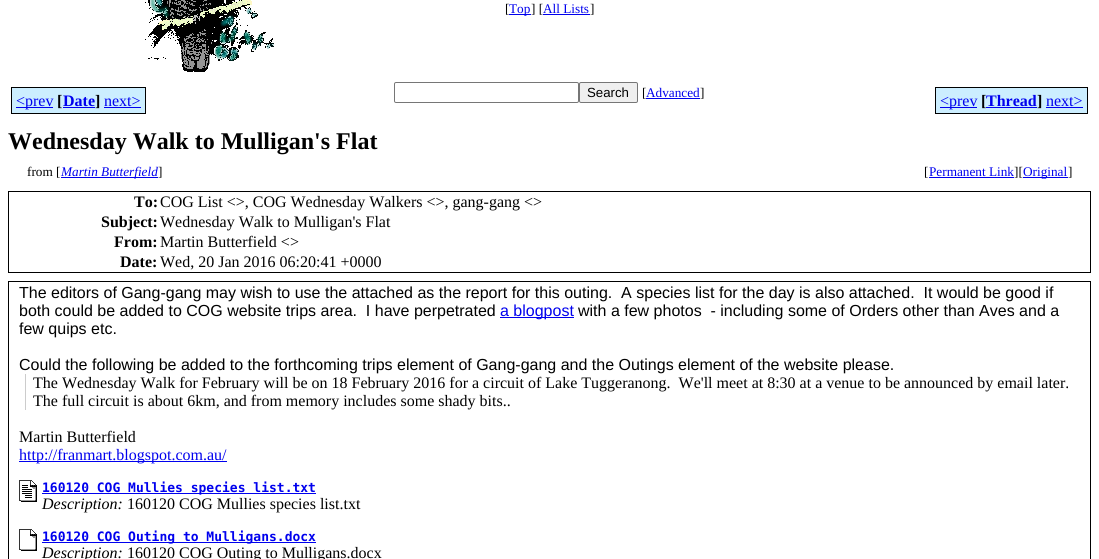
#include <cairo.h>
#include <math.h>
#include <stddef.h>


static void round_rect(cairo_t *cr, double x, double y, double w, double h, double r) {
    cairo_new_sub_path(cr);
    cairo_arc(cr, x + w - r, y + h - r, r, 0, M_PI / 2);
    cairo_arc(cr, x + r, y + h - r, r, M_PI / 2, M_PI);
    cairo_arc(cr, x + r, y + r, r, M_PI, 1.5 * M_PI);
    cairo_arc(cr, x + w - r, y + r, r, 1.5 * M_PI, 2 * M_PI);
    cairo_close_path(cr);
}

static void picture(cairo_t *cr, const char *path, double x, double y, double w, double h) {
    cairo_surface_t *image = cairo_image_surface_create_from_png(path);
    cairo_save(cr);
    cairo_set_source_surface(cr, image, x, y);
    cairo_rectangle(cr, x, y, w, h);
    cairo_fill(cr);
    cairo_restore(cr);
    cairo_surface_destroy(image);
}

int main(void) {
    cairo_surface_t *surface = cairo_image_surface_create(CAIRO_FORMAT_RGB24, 1099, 559);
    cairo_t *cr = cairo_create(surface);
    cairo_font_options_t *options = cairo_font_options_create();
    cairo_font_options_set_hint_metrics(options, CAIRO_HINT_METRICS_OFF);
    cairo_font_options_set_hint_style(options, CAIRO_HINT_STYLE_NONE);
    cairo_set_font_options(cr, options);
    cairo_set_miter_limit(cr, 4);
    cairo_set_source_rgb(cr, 1, 1, 1);
    cairo_paint(cr);
    picture(cr, "img1.png", 145, 0, 129, 72);
    cairo_select_font_face(cr, "Liberation Serif", CAIRO_FONT_SLANT_NORMAL, CAIRO_FONT_WEIGHT_NORMAL);
    cairo_set_font_size(cr, 13.25);
    cairo_set_source_rgb(cr, 0, 0, 0);
    cairo_move_to(cr, 505, 13);
    cairo_show_text(cr, "[");
    cairo_set_source_rgb(cr, 0, 0, 0.933);
    cairo_rectangle(cr, 509, 14, 22, 1);
    cairo_fill(cr);
    cairo_move_to(cr, 509, 13);
    cairo_show_text(cr, "Top");
    cairo_set_source_rgb(cr, 0, 0, 0);
    cairo_move_to(cr, 531, 13);
    cairo_show_text(cr, "] [");
    cairo_set_source_rgb(cr, 0, 0, 0.933);
    cairo_move_to(cr, 543, 13);
    cairo_show_text(cr, "All Lists");
    cairo_set_source_rgb(cr, 0, 0, 0);
    cairo_move_to(cr, 590, 13);
    cairo_show_text(cr, "]");
    cairo_set_source_rgb(cr, 0, 0, 0.933);
    cairo_rectangle(cr, 543, 14, 47, 1);
    cairo_fill(cr);
    cairo_set_source_rgb(cr, 0.8, 0.933, 1);
    cairo_rectangle(cr, 12, 88, 41, 25);
    cairo_fill(cr);
    cairo_set_source_rgb(cr, 0, 0, 0.933);
    cairo_rectangle(cr, 16, 107, 37, 1);
    cairo_fill(cr);
    cairo_set_source_rgb(cr, 0.8, 0.933, 1);
    cairo_rectangle(cr, 53, 87, 10, 27);
    cairo_fill(cr);
    cairo_set_font_size(cr, 16);
    cairo_set_source_rgb(cr, 0, 0, 0.933);
    cairo_move_to(cr, 16, 106);
    cairo_show_text(cr, "<prev");
    cairo_set_source_rgb(cr, 0, 0, 0);
    cairo_rectangle(cr, 11, 87, 42, 1);
    cairo_fill(cr);
    cairo_rectangle(cr, 11, 113, 42, 1);
    cairo_fill(cr);
    cairo_rectangle(cr, 11, 87, 1, 27);
    cairo_fill(cr);
    cairo_rectangle(cr, 53, 113, 42, 1);
    cairo_fill(cr);
    cairo_select_font_face(cr, "Liberation Serif", CAIRO_FONT_SLANT_NORMAL, CAIRO_FONT_WEIGHT_BOLD);
    cairo_move_to(cr, 57, 106);
    cairo_show_text(cr, "[");
    cairo_set_source_rgb(cr, 0.8, 0.933, 1);
    cairo_rectangle(cr, 63, 88, 32, 25);
    cairo_fill(cr);
    cairo_set_source_rgb(cr, 0, 0, 0.933);
    cairo_rectangle(cr, 63, 107, 32, 1);
    cairo_fill(cr);
    cairo_move_to(cr, 63, 106);
    cairo_show_text(cr, "Date");
    cairo_set_source_rgb(cr, 0, 0, 0);
    cairo_rectangle(cr, 53, 87, 42, 1);
    cairo_fill(cr);
    cairo_set_source_rgb(cr, 0.8, 0.933, 1);
    cairo_rectangle(cr, 95, 87, 9, 27);
    cairo_fill(cr);
    cairo_set_source_rgb(cr, 0, 0, 0);
    cairo_rectangle(cr, 95, 87, 51, 1);
    cairo_fill(cr);
    cairo_move_to(cr, 95, 106);
    cairo_show_text(cr, "]");
    cairo_rectangle(cr, 95, 113, 9, 1);
    cairo_fill(cr);
    cairo_set_source_rgb(cr, 0.8, 0.933, 1);
    cairo_rectangle(cr, 104, 88, 41, 25);
    cairo_fill(cr);
    cairo_select_font_face(cr, "Liberation Serif", CAIRO_FONT_SLANT_NORMAL, CAIRO_FONT_WEIGHT_NORMAL);
    cairo_set_source_rgb(cr, 0, 0, 0.933);
    cairo_move_to(cr, 104, 106);
    cairo_show_text(cr, "next>");
    cairo_set_source_rgb(cr, 0, 0, 0);
    cairo_rectangle(cr, 145, 87, 1, 27);
    cairo_fill(cr);
    cairo_rectangle(cr, 104, 113, 42, 1);
    cairo_fill(cr);
    cairo_set_source_rgb(cr, 0, 0, 0.933);
    cairo_rectangle(cr, 104, 107, 37, 1);
    cairo_fill(cr);
    round_rect(cr, 394.5, 82.5, 184, 20, 1.5);
    cairo_set_source_rgb(cr, 0.463, 0.463, 0.463);
    cairo_set_line_width(cr, 1);
    cairo_stroke(cr);
    cairo_set_source_rgb(cr, 0.937, 0.937, 0.937);
    round_rect(cr, 579.5, 82.5, 58, 20, 1.5);
    cairo_fill_preserve(cr);
    cairo_set_source_rgb(cr, 0.463, 0.463, 0.463);
    cairo_stroke(cr);
    cairo_select_font_face(cr, "Liberation Sans", CAIRO_FONT_SLANT_NORMAL, CAIRO_FONT_WEIGHT_NORMAL);
    cairo_set_font_size(cr, 13.25);
    cairo_set_source_rgb(cr, 0, 0, 0);
    cairo_move_to(cr, 587, 97);
    cairo_show_text(cr, "Search");
    cairo_select_font_face(cr, "Liberation Serif", CAIRO_FONT_SLANT_NORMAL, CAIRO_FONT_WEIGHT_NORMAL);
    cairo_move_to(cr, 642, 97);
    cairo_show_text(cr, "[");
    cairo_set_source_rgb(cr, 0, 0, 0.933);
    cairo_rectangle(cr, 646, 98, 54, 1);
    cairo_fill(cr);
    cairo_move_to(cr, 646, 97);
    cairo_show_text(cr, "Advanced");
    cairo_set_source_rgb(cr, 0, 0, 0);
    cairo_move_to(cr, 700, 97);
    cairo_show_text(cr, "]");
    cairo_set_source_rgb(cr, 0.8, 0.933, 1);
    cairo_rectangle(cr, 936, 88, 41, 25);
    cairo_fill(cr);
    cairo_set_source_rgb(cr, 0, 0, 0.933);
    cairo_rectangle(cr, 940, 107, 37, 1);
    cairo_fill(cr);
    cairo_set_source_rgb(cr, 0.8, 0.933, 1);
    cairo_rectangle(cr, 977, 87, 9, 27);
    cairo_fill(cr);
    cairo_set_font_size(cr, 16);
    cairo_set_source_rgb(cr, 0, 0, 0.933);
    cairo_move_to(cr, 940, 106);
    cairo_show_text(cr, "<prev");
    cairo_set_source_rgb(cr, 0, 0, 0);
    cairo_rectangle(cr, 935, 87, 42, 1);
    cairo_fill(cr);
    cairo_rectangle(cr, 935, 113, 42, 1);
    cairo_fill(cr);
    cairo_rectangle(cr, 935, 87, 1, 27);
    cairo_fill(cr);
    cairo_rectangle(cr, 977, 113, 60, 1);
    cairo_fill(cr);
    cairo_select_font_face(cr, "Liberation Serif", CAIRO_FONT_SLANT_NORMAL, CAIRO_FONT_WEIGHT_BOLD);
    cairo_move_to(cr, 981, 106);
    cairo_show_text(cr, "[");
    cairo_set_source_rgb(cr, 0.8, 0.933, 1);
    cairo_rectangle(cr, 986, 88, 51, 25);
    cairo_fill(cr);
    cairo_set_source_rgb(cr, 0, 0, 0.933);
    cairo_rectangle(cr, 986, 107, 51, 1);
    cairo_fill(cr);
    cairo_move_to(cr, 986, 106);
    cairo_show_text(cr, "Thread");
    cairo_set_source_rgb(cr, 0, 0, 0);
    cairo_rectangle(cr, 977, 87, 60, 1);
    cairo_fill(cr);
    cairo_set_source_rgb(cr, 0.8, 0.933, 1);
    cairo_rectangle(cr, 1037, 87, 9, 27);
    cairo_fill(cr);
    cairo_set_source_rgb(cr, 0, 0, 0);
    cairo_rectangle(cr, 1037, 87, 51, 1);
    cairo_fill(cr);
    cairo_move_to(cr, 1037, 106);
    cairo_show_text(cr, "]");
    cairo_rectangle(cr, 1037, 113, 9, 1);
    cairo_fill(cr);
    cairo_set_source_rgb(cr, 0.8, 0.933, 1);
    cairo_rectangle(cr, 1046, 88, 41, 25);
    cairo_fill(cr);
    cairo_select_font_face(cr, "Liberation Serif", CAIRO_FONT_SLANT_NORMAL, CAIRO_FONT_WEIGHT_NORMAL);
    cairo_set_source_rgb(cr, 0, 0, 0.933);
    cairo_move_to(cr, 1046, 106);
    cairo_show_text(cr, "next>");
    cairo_set_source_rgb(cr, 0, 0, 0);
    cairo_rectangle(cr, 1087, 87, 1, 27);
    cairo_fill(cr);
    cairo_rectangle(cr, 1046, 113, 42, 1);
    cairo_fill(cr);
    cairo_set_source_rgb(cr, 0, 0, 0.933);
    cairo_rectangle(cr, 1046, 107, 37, 1);
    cairo_fill(cr);
    cairo_select_font_face(cr, "Liberation Serif", CAIRO_FONT_SLANT_NORMAL, CAIRO_FONT_WEIGHT_BOLD);
    cairo_set_font_size(cr, 24);
    cairo_set_source_rgb(cr, 0, 0, 0);
    cairo_move_to(cr, 8, 149);
    cairo_show_text(cr, "Wednesday Walk to Mulligan's Flat");
    cairo_select_font_face(cr, "Liberation Serif", CAIRO_FONT_SLANT_NORMAL, CAIRO_FONT_WEIGHT_NORMAL);
    cairo_set_font_size(cr, 13.25);
    cairo_move_to(cr, 27, 176);
    cairo_show_text(cr, "from [");
    cairo_set_source_rgb(cr, 0, 0, 0.933);
    cairo_rectangle(cr, 61, 177, 97, 1);
    cairo_fill(cr);
    cairo_select_font_face(cr, "Liberation Serif", CAIRO_FONT_SLANT_ITALIC, CAIRO_FONT_WEIGHT_NORMAL);
    cairo_move_to(cr, 61, 176);
    cairo_show_text(cr, "Martin Butterfield");
    cairo_select_font_face(cr, "Liberation Serif", CAIRO_FONT_SLANT_NORMAL, CAIRO_FONT_WEIGHT_NORMAL);
    cairo_set_source_rgb(cr, 0, 0, 0);
    cairo_move_to(cr, 158, 176);
    cairo_show_text(cr, "]");
    cairo_move_to(cr, 924, 176);
    cairo_show_text(cr, "[");
    cairo_set_source_rgb(cr, 0, 0, 0.933);
    cairo_rectangle(cr, 929, 177, 85, 1);
    cairo_fill(cr);
    cairo_move_to(cr, 929, 176);
    cairo_show_text(cr, "Permanent Link");
    cairo_set_source_rgb(cr, 0, 0, 0);
    cairo_move_to(cr, 1014, 176);
    cairo_show_text(cr, "][");
    cairo_set_source_rgb(cr, 0, 0, 0.933);
    cairo_rectangle(cr, 1023, 177, 45, 1);
    cairo_fill(cr);
    cairo_move_to(cr, 1023, 176);
    cairo_show_text(cr, "Original");
    cairo_set_source_rgb(cr, 0, 0, 0);
    cairo_move_to(cr, 1068, 176);
    cairo_show_text(cr, "]");
    cairo_rectangle(cr, 8.5, 191.5, 1082, 81);
    cairo_stroke(cr);
    cairo_select_font_face(cr, "Liberation Serif", CAIRO_FONT_SLANT_NORMAL, CAIRO_FONT_WEIGHT_BOLD);
    cairo_set_font_size(cr, 16);
    cairo_move_to(cr, 134, 207);
    cairo_show_text(cr, "To:");
    cairo_select_font_face(cr, "Liberation Serif", CAIRO_FONT_SLANT_NORMAL, CAIRO_FONT_WEIGHT_NORMAL);
    cairo_move_to(cr, 160, 207);
    cairo_show_text(cr, "COG List <>, COG Wednesday Walkers <>, gang-gang <>");
    cairo_select_font_face(cr, "Liberation Serif", CAIRO_FONT_SLANT_NORMAL, CAIRO_FONT_WEIGHT_BOLD);
    cairo_move_to(cr, 101, 227);
    cairo_show_text(cr, "Subject:");
    cairo_select_font_face(cr, "Liberation Serif", CAIRO_FONT_SLANT_NORMAL, CAIRO_FONT_WEIGHT_NORMAL);
    cairo_move_to(cr, 160, 227);
    cairo_show_text(cr, "Wednesday Walk to Mulligan's Flat");
    cairo_select_font_face(cr, "Liberation Serif", CAIRO_FONT_SLANT_NORMAL, CAIRO_FONT_WEIGHT_BOLD);
    cairo_move_to(cr, 114, 247);
    cairo_show_text(cr, "From:");
    cairo_select_font_face(cr, "Liberation Serif", CAIRO_FONT_SLANT_NORMAL, CAIRO_FONT_WEIGHT_NORMAL);
    cairo_move_to(cr, 160, 247);
    cairo_show_text(cr, "Martin Butterfield <>");
    cairo_select_font_face(cr, "Liberation Serif", CAIRO_FONT_SLANT_NORMAL, CAIRO_FONT_WEIGHT_BOLD);
    cairo_move_to(cr, 120, 267);
    cairo_show_text(cr, "Date:");
    cairo_select_font_face(cr, "Liberation Serif", CAIRO_FONT_SLANT_NORMAL, CAIRO_FONT_WEIGHT_NORMAL);
    cairo_move_to(cr, 160, 267);
    cairo_show_text(cr, "Wed, 20 Jan 2016 06:20:41 +0000");
    cairo_rectangle(cr, 8.5, 281.5, 1082, 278);
    cairo_stroke(cr);
    cairo_select_font_face(cr, "Liberation Sans", CAIRO_FONT_SLANT_NORMAL, CAIRO_FONT_WEIGHT_NORMAL);
    cairo_move_to(cr, 19, 298);
    cairo_show_text(cr, "The editors of Gang-gang may wish to use the attached as the report for this outing.  A species list for the day is also attached.  It would be good if");
    cairo_move_to(cr, 19, 316);
    cairo_show_text(cr, "both could be added to COG website trips area.  I have perpetrated");
    cairo_set_source_rgb(cr, 0, 0, 0.933);
    cairo_rectangle(cr, 500, 317, 74, 1);
    cairo_fill(cr);
    cairo_move_to(cr, 500, 316);
    cairo_show_text(cr, "a blogpost");
    cairo_set_source_rgb(cr, 0, 0, 0);
    cairo_move_to(cr, 578, 316);
    cairo_show_text(cr, "with a few photos  - including some of Orders other than Aves and a");
    cairo_move_to(cr, 19, 334);
    cairo_show_text(cr, "few quips etc.");
    cairo_move_to(cr, 19, 370);
    cairo_show_text(cr, "Could the following be added to the forthcoming trips element of Gang-gang and the Outings element of the website please.");
    cairo_set_source_rgb(cr, 0.8, 0.8, 0.8);
    cairo_rectangle(cr, 25, 374, 1, 36);
    cairo_fill(cr);
    cairo_select_font_face(cr, "Liberation Serif", CAIRO_FONT_SLANT_NORMAL, CAIRO_FONT_WEIGHT_NORMAL);
    cairo_set_source_rgb(cr, 0, 0, 0);
    cairo_move_to(cr, 33, 388);
    cairo_show_text(cr, "The Wednesday Walk for February will be on 18 February 2016 for a circuit of Lake Tuggeranong.  We'll meet at 8:30 at a venue to be announced by email later.");
    cairo_move_to(cr, 33, 406);
    cairo_show_text(cr, "The full circuit is about 6km, and from memory includes some shady bits..");
    cairo_move_to(cr, 19, 442);
    cairo_show_text(cr, "Martin Butterfield");
    cairo_set_source_rgb(cr, 0, 0, 0.933);
    cairo_rectangle(cr, 19, 461, 208, 1);
    cairo_fill(cr);
    cairo_move_to(cr, 19, 460);
    cairo_show_text(cr, "http://franmart.blogspot.com.au/");
    picture(cr, "img2.png", 19, 480, 18, 22);
    cairo_rectangle(cr, 42, 493, 274, 1);
    cairo_fill(cr);
    cairo_select_font_face(cr, "DejaVu Sans Mono", CAIRO_FONT_SLANT_NORMAL, CAIRO_FONT_WEIGHT_BOLD);
    cairo_set_font_size(cr, 13);
    cairo_move_to(cr, 42, 492);
    cairo_show_text(cr, "160120 COG Mullies species list.txt");
    cairo_select_font_face(cr, "Liberation Serif", CAIRO_FONT_SLANT_ITALIC, CAIRO_FONT_WEIGHT_NORMAL);
    cairo_set_font_size(cr, 16);
    cairo_set_source_rgb(cr, 0, 0, 0);
    cairo_move_to(cr, 42, 509);
    cairo_show_text(cr, "Description:");
    cairo_select_font_face(cr, "Liberation Serif", CAIRO_FONT_SLANT_NORMAL, CAIRO_FONT_WEIGHT_NORMAL);
    cairo_move_to(cr, 127, 509);
    cairo_show_text(cr, "160120 COG Mullies species list.txt");
    picture(cr, "img3.png", 19, 529, 18, 22);
    cairo_set_source_rgb(cr, 0, 0, 0.933);
    cairo_rectangle(cr, 42, 542, 274, 1);
    cairo_fill(cr);
    cairo_select_font_face(cr, "DejaVu Sans Mono", CAIRO_FONT_SLANT_NORMAL, CAIRO_FONT_WEIGHT_BOLD);
    cairo_set_font_size(cr, 13);
    cairo_move_to(cr, 42, 541);
    cairo_show_text(cr, "160120 COG Outing to Mulligans.docx");
    cairo_select_font_face(cr, "Liberation Serif", CAIRO_FONT_SLANT_ITALIC, CAIRO_FONT_WEIGHT_NORMAL);
    cairo_set_font_size(cr, 16);
    cairo_set_source_rgb(cr, 0, 0, 0);
    cairo_move_to(cr, 42, 558);
    cairo_show_text(cr, "Description:");
    cairo_select_font_face(cr, "Liberation Serif", CAIRO_FONT_SLANT_NORMAL, CAIRO_FONT_WEIGHT_NORMAL);
    cairo_move_to(cr, 127, 558);
    cairo_show_text(cr, "160120 COG Outing to Mulligans.docx");
    cairo_surface_write_to_png(surface, "page.png");
    cairo_font_options_destroy(options);
    cairo_destroy(cr);
    cairo_surface_destroy(surface);
    return 0;
}
